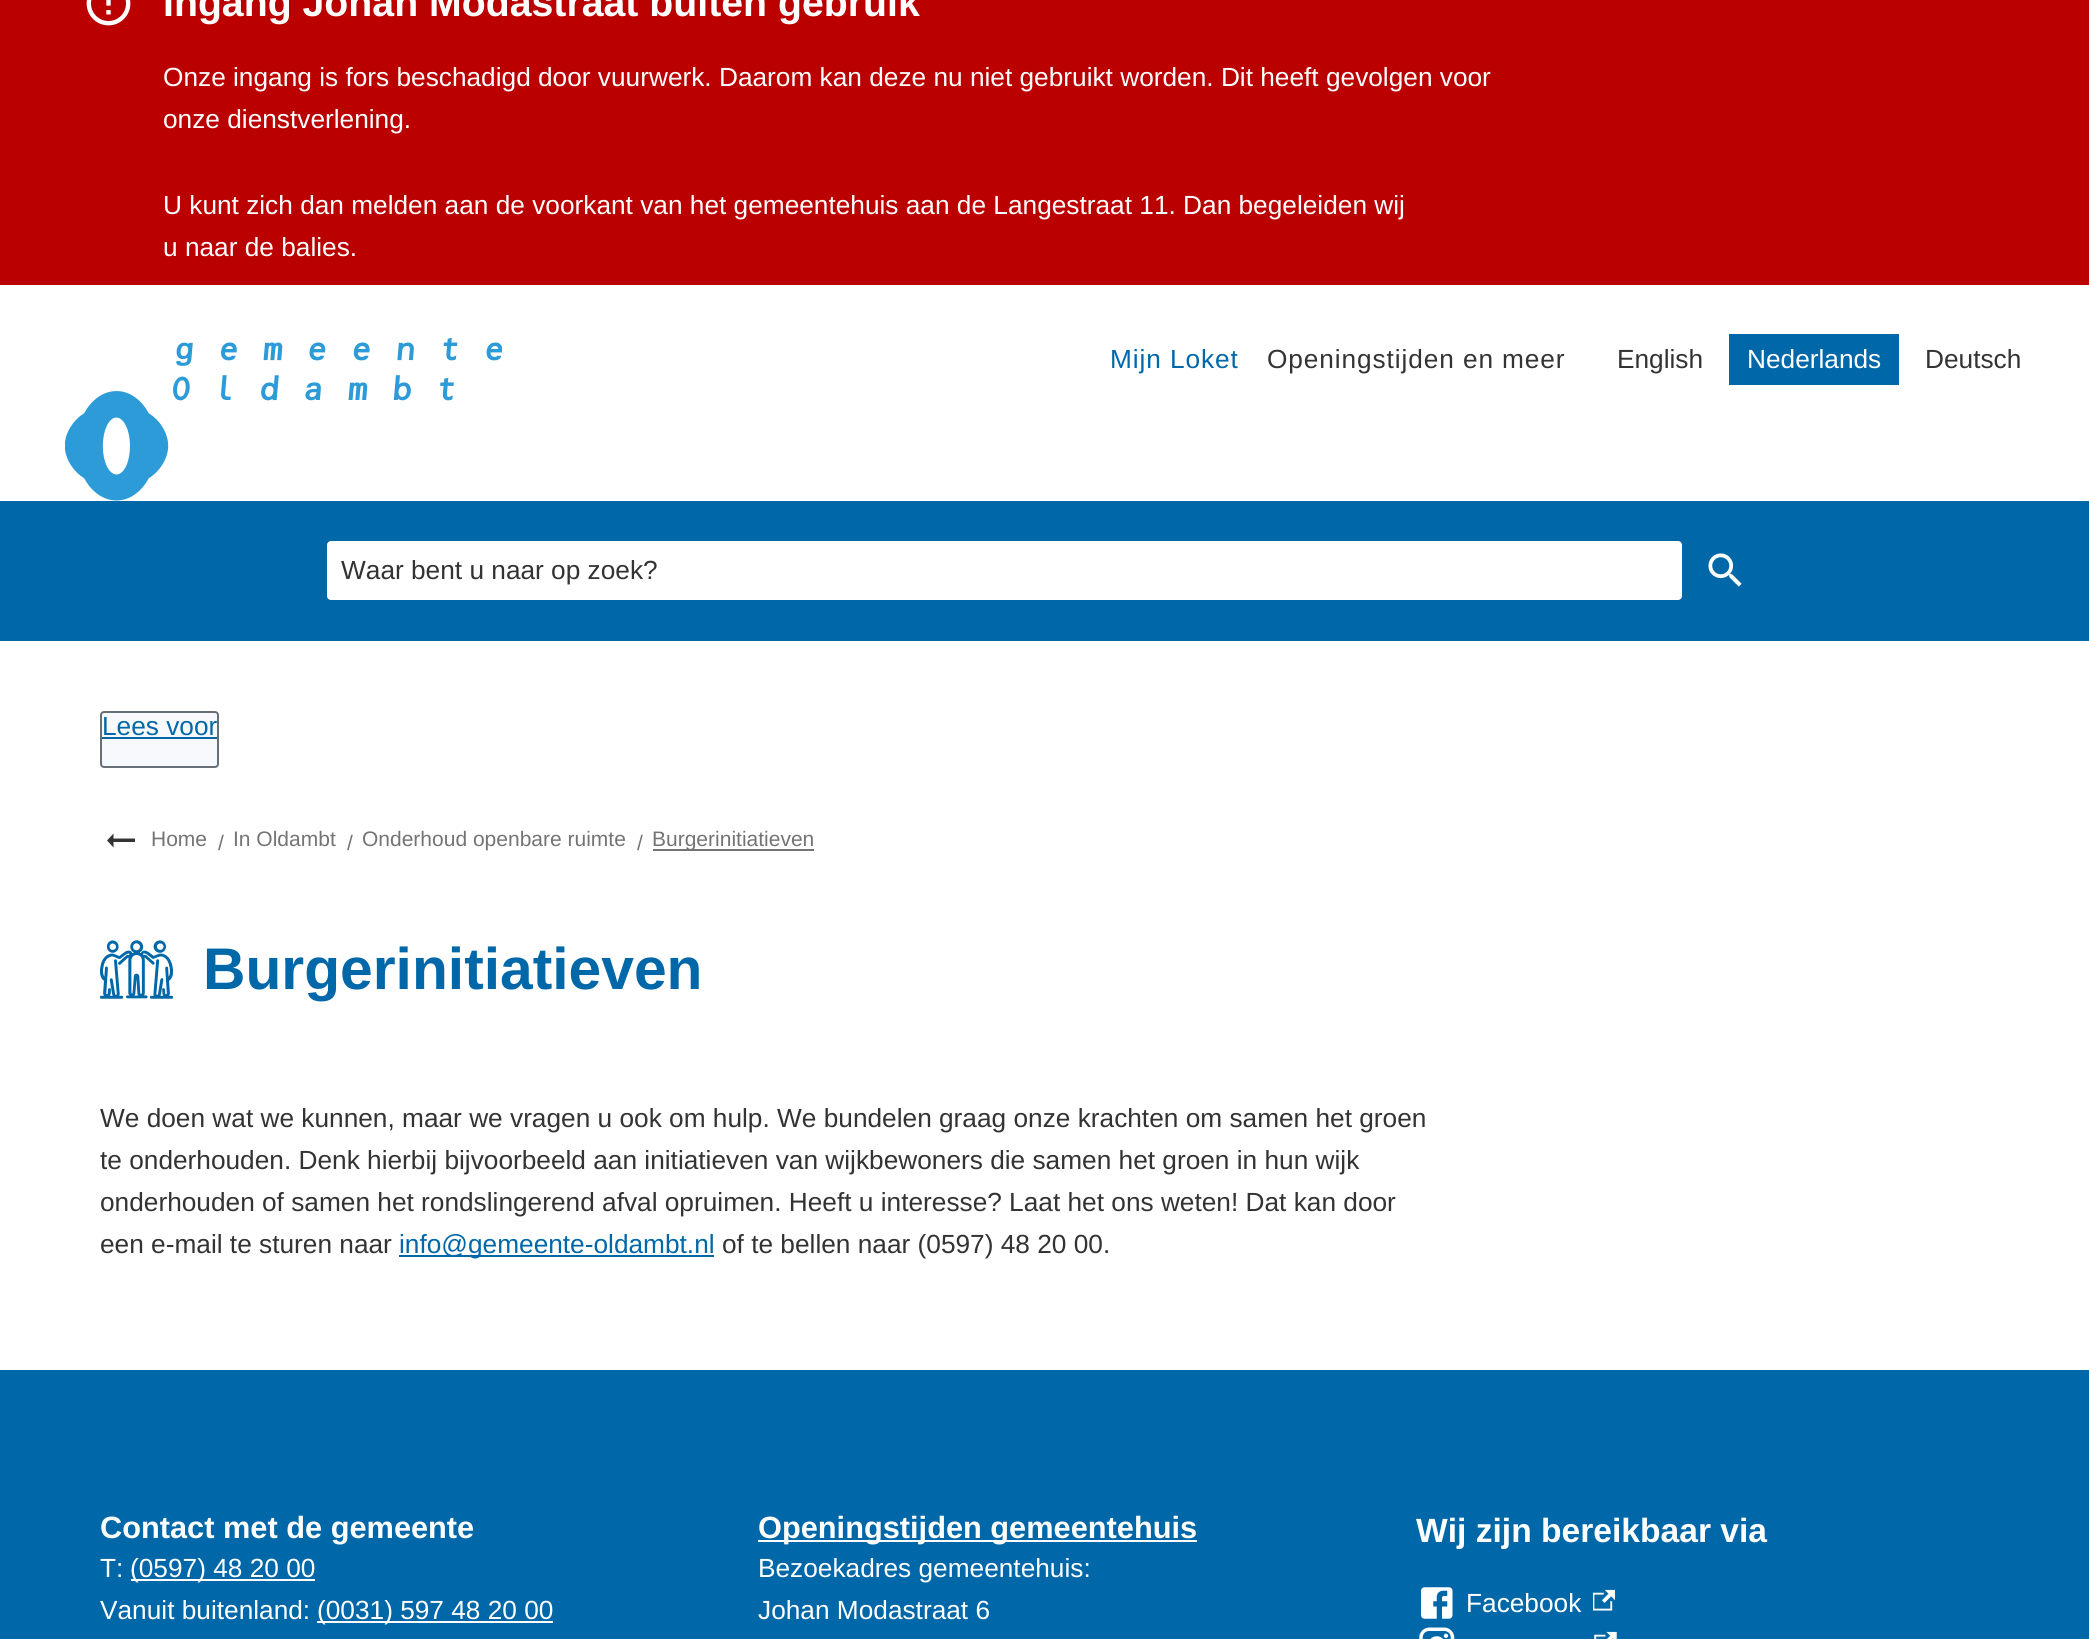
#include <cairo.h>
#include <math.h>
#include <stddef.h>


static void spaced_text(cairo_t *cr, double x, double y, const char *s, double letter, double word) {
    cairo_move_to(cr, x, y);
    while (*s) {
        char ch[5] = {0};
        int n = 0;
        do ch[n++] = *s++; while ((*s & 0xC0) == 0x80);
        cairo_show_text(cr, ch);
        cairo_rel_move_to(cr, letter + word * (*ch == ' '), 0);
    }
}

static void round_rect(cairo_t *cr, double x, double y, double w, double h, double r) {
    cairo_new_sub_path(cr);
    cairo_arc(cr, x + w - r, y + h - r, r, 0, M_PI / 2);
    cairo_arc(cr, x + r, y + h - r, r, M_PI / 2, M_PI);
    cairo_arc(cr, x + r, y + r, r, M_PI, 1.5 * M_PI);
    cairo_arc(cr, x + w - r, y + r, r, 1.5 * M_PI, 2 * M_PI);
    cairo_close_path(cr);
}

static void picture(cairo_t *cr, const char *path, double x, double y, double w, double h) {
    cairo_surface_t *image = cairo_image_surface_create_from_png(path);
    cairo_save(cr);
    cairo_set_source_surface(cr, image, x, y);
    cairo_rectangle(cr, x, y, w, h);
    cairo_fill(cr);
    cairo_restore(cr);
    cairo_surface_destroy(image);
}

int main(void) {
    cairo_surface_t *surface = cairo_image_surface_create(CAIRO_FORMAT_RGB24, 2089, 1639);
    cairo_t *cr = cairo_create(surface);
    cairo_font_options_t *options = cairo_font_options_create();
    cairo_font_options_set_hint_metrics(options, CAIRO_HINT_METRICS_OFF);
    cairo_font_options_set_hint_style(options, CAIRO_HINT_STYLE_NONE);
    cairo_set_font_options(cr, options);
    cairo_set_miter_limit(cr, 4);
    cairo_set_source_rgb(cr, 1, 1, 1);
    cairo_paint(cr);
    cairo_set_source_rgb(cr, 0.733, 0, 0);
    cairo_rectangle(cr, 0, 0, 2089, 285);
    cairo_fill(cr);
    picture(cr, "img1.png", 86, 0, 45, 26);
    cairo_select_font_face(cr, "Liberation Sans", CAIRO_FONT_SLANT_NORMAL, CAIRO_FONT_WEIGHT_BOLD);
    cairo_set_font_size(cr, 39.25);
    cairo_set_source_rgb(cr, 1, 1, 1);
    cairo_move_to(cr, 163, 16);
    cairo_show_text(cr, "Ingang Johan Modastraat buiten gebruik");
    cairo_select_font_face(cr, "Liberation Sans", CAIRO_FONT_SLANT_NORMAL, CAIRO_FONT_WEIGHT_NORMAL);
    cairo_set_font_size(cr, 26.25);
    cairo_move_to(cr, 163, 86);
    cairo_show_text(cr, "Onze ingang is fors beschadigd door vuurwerk. Daarom kan deze nu niet gebruikt worden. Dit heeft gevolgen voor");
    cairo_move_to(cr, 163, 128);
    cairo_show_text(cr, "onze dienstverlening.");
    cairo_move_to(cr, 163, 214);
    cairo_show_text(cr, "U kunt zich dan melden aan de voorkant van het gemeentehuis aan de Langestraat 11. Dan begeleiden wij");
    cairo_move_to(cr, 163, 256);
    cairo_show_text(cr, "u naar de balies.");
    picture(cr, "img2.png", 65, 338, 437, 163);
    cairo_set_source_rgb(cr, 0, 0.404, 0.659);
    spaced_text(cr, 1110, 368, "Mijn Loket", 0.9, 0);
    cairo_set_source_rgb(cr, 0.2, 0.2, 0.2);
    spaced_text(cr, 1267, 368, "Openingstijden en meer", 0.9, 0);
    cairo_move_to(cr, 1617, 368);
    cairo_show_text(cr, "English");
    cairo_set_source_rgb(cr, 0, 0.404, 0.659);
    cairo_rectangle(cr, 1729, 334, 170, 51);
    cairo_fill(cr);
    cairo_set_source_rgb(cr, 1, 1, 1);
    cairo_move_to(cr, 1747, 368);
    cairo_show_text(cr, "Nederlands");
    cairo_set_source_rgb(cr, 0.2, 0.2, 0.2);
    cairo_move_to(cr, 1925, 368);
    cairo_show_text(cr, "Deutsch");
    cairo_set_source_rgb(cr, 0, 0.404, 0.659);
    cairo_rectangle(cr, 0, 501, 2089, 140);
    cairo_fill(cr);
    cairo_set_source_rgb(cr, 1, 1, 1);
    round_rect(cr, 327, 541, 1355, 59, 4);
    cairo_fill(cr);
    cairo_set_source_rgb(cr, 0.2, 0.2, 0.2);
    cairo_move_to(cr, 341, 579);
    cairo_show_text(cr, "Waar bent u naar op zoek?");
    picture(cr, "img3.png", 1708, 553, 34, 34);
    cairo_set_source_rgb(cr, 0.965, 0.976, 0.988);
    round_rect(cr, 101, 712, 117, 55, 3);
    cairo_fill_preserve(cr);
    cairo_set_source_rgb(cr, 0.404, 0.439, 0.467);
    cairo_stroke(cr);
    cairo_set_source_rgb(cr, 0, 0.404, 0.659);
    cairo_move_to(cr, 102, 735);
    cairo_show_text(cr, "Lees voor");
    cairo_rectangle(cr, 102, 737, 115, 2);
    cairo_fill(cr);
    cairo_set_source_rgb(cr, 0.2, 0.2, 0.2);
    cairo_new_path(cr);
    cairo_move_to(cr, 113.5, 842);
    cairo_line_to(cr, 135, 842);
    cairo_line_to(cr, 135, 838.5);
    cairo_line_to(cr, 113.5, 838.5);
    cairo_line_to(cr, 113.5, 833.5);
    cairo_line_to(cr, 107, 840.5);
    cairo_line_to(cr, 113.5, 847.5);
    cairo_close_path(cr);
    cairo_fill(cr);
    cairo_set_font_size(cr, 21);
    cairo_set_source_rgb(cr, 0.455, 0.455, 0.455);
    cairo_move_to(cr, 151, 846);
    cairo_show_text(cr, "Home");
    cairo_move_to(cr, 218, 850);
    cairo_show_text(cr, "/");
    cairo_move_to(cr, 233, 846);
    cairo_show_text(cr, "In Oldambt");
    cairo_move_to(cr, 347, 850);
    cairo_show_text(cr, "/");
    cairo_move_to(cr, 362, 846);
    cairo_show_text(cr, "Onderhoud openbare ruimte");
    cairo_move_to(cr, 637, 850);
    cairo_show_text(cr, "/");
    cairo_rectangle(cr, 653, 849, 161, 2);
    cairo_fill(cr);
    cairo_move_to(cr, 652, 846);
    cairo_show_text(cr, "Burgerinitiatieven");
    picture(cr, "img4.png", 100, 940, 73, 59);
    cairo_select_font_face(cr, "Liberation Sans", CAIRO_FONT_SLANT_NORMAL, CAIRO_FONT_WEIGHT_BOLD);
    cairo_set_font_size(cr, 58.75);
    cairo_set_source_rgb(cr, 0, 0.404, 0.659);
    cairo_move_to(cr, 203, 989);
    cairo_show_text(cr, "Burgerinitiatieven");
    cairo_select_font_face(cr, "Liberation Sans", CAIRO_FONT_SLANT_NORMAL, CAIRO_FONT_WEIGHT_NORMAL);
    cairo_set_font_size(cr, 26.25);
    cairo_set_source_rgb(cr, 0.2, 0.2, 0.2);
    cairo_move_to(cr, 100, 1127);
    cairo_show_text(cr, "We doen wat we kunnen, maar we vragen u ook om hulp. We bundelen graag onze krachten om samen het groen");
    cairo_move_to(cr, 100, 1169);
    cairo_show_text(cr, "te onderhouden. Denk hierbij bijvoorbeeld aan initiatieven van wijkbewoners die samen het groen in hun wijk");
    cairo_move_to(cr, 100, 1211);
    cairo_show_text(cr, "onderhouden of samen het rondslingerend afval opruimen. Heeft u interesse? Laat het ons weten! Dat kan door");
    cairo_move_to(cr, 100, 1253);
    cairo_show_text(cr, "een e-mail te sturen naar");
    cairo_set_source_rgb(cr, 0, 0.404, 0.659);
    cairo_rectangle(cr, 399, 1255, 315, 2);
    cairo_fill(cr);
    cairo_move_to(cr, 399, 1253);
    cairo_show_text(cr, "info@gemeente-oldambt.nl");
    cairo_set_source_rgb(cr, 0.2, 0.2, 0.2);
    cairo_move_to(cr, 722, 1253);
    cairo_show_text(cr, "of te bellen naar (0597) 48 20 00.");
    cairo_set_source_rgb(cr, 0, 0.404, 0.659);
    cairo_rectangle(cr, 0, 1370, 2089, 269);
    cairo_fill(cr);
    cairo_select_font_face(cr, "Liberation Sans", CAIRO_FONT_SLANT_NORMAL, CAIRO_FONT_WEIGHT_BOLD);
    cairo_set_font_size(cr, 30.75);
    cairo_set_source_rgb(cr, 1, 1, 1);
    cairo_move_to(cr, 100, 1538);
    cairo_show_text(cr, "Contact met de gemeente");
    cairo_select_font_face(cr, "Liberation Sans", CAIRO_FONT_SLANT_NORMAL, CAIRO_FONT_WEIGHT_NORMAL);
    cairo_set_font_size(cr, 26.25);
    cairo_move_to(cr, 100, 1577);
    cairo_show_text(cr, "T:");
    cairo_rectangle(cr, 131, 1579, 184, 2);
    cairo_fill(cr);
    cairo_move_to(cr, 130, 1577);
    cairo_show_text(cr, "(0597) 48 20 00");
    cairo_move_to(cr, 100, 1619);
    cairo_show_text(cr, "Vanuit buitenland:");
    cairo_rectangle(cr, 317, 1621, 236, 2);
    cairo_fill(cr);
    cairo_move_to(cr, 317, 1619);
    cairo_show_text(cr, "(0031) 597 48 20 00");
    cairo_rectangle(cr, 758, 1540, 439, 2);
    cairo_fill(cr);
    cairo_select_font_face(cr, "Liberation Sans", CAIRO_FONT_SLANT_NORMAL, CAIRO_FONT_WEIGHT_BOLD);
    cairo_set_font_size(cr, 30.75);
    cairo_move_to(cr, 758, 1538);
    cairo_show_text(cr, "Openingstijden gemeentehuis");
    cairo_select_font_face(cr, "Liberation Sans", CAIRO_FONT_SLANT_NORMAL, CAIRO_FONT_WEIGHT_NORMAL);
    cairo_set_font_size(cr, 26.25);
    cairo_move_to(cr, 758, 1577);
    cairo_show_text(cr, "Bezoekadres gemeentehuis:");
    cairo_move_to(cr, 758, 1619);
    cairo_show_text(cr, "Johan Modastraat 6");
    cairo_select_font_face(cr, "Liberation Sans", CAIRO_FONT_SLANT_NORMAL, CAIRO_FONT_WEIGHT_BOLD);
    cairo_set_font_size(cr, 33.6);
    cairo_move_to(cr, 1416, 1542);
    cairo_show_text(cr, "Wij zijn bereikbaar via");
    picture(cr, "img5.png", 1421, 1587, 32, 32);
    cairo_select_font_face(cr, "Liberation Sans", CAIRO_FONT_SLANT_NORMAL, CAIRO_FONT_WEIGHT_NORMAL);
    cairo_set_font_size(cr, 26.25);
    cairo_move_to(cr, 1466, 1612);
    cairo_show_text(cr, "Facebook");
    picture(cr, "img6.png", 1593, 1589, 22, 22);
    picture(cr, "img7.png", 1419, 1627, 36, 12);
    picture(cr, "img8.png", 1594, 1631, 23, 8);
    cairo_surface_write_to_png(surface, "page.png");
    cairo_font_options_destroy(options);
    cairo_destroy(cr);
    cairo_surface_destroy(surface);
    return 0;
}
